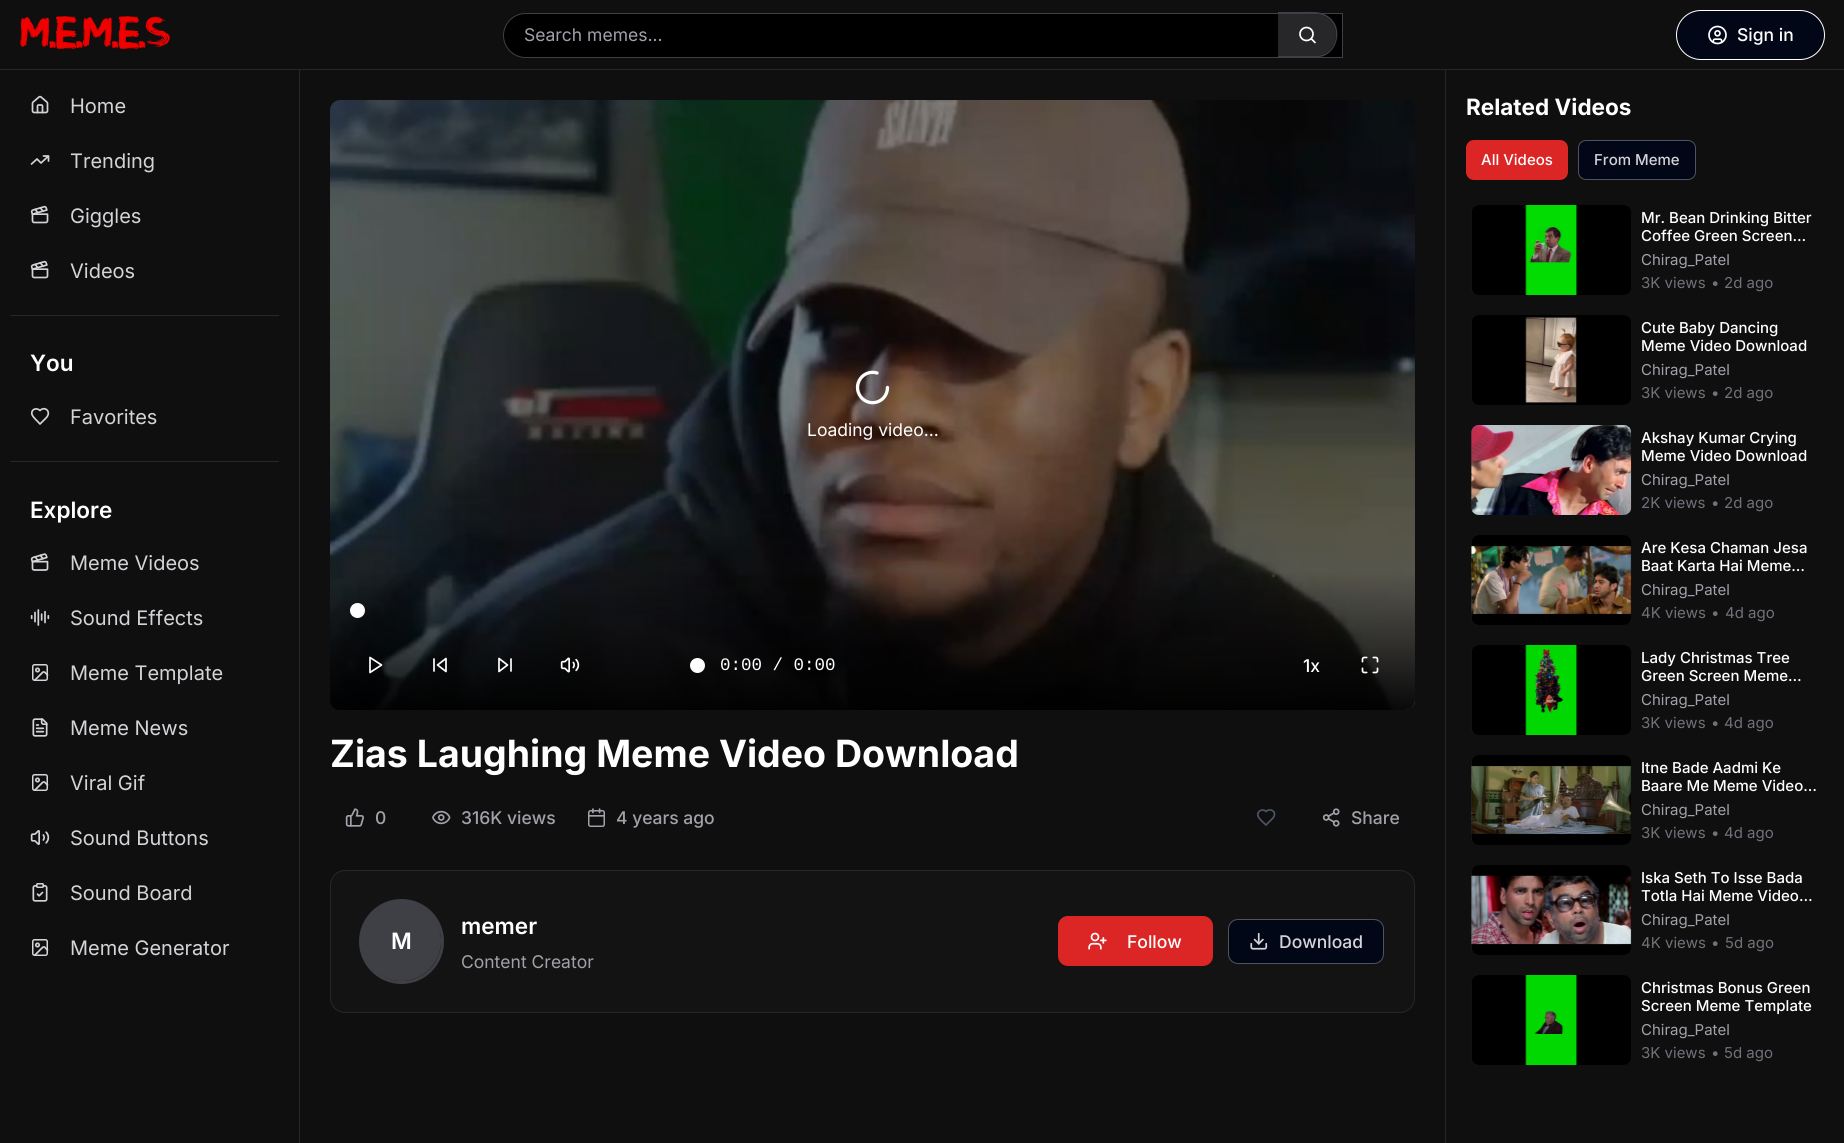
#include <cairo.h>
#include <math.h>
#include <stddef.h>


static void round_rect(cairo_t *cr, double x, double y, double w, double h, double r) {
    cairo_new_sub_path(cr);
    cairo_arc(cr, x + w - r, y + h - r, r, 0, M_PI / 2);
    cairo_arc(cr, x + r, y + h - r, r, M_PI / 2, M_PI);
    cairo_arc(cr, x + r, y + r, r, M_PI, 1.5 * M_PI);
    cairo_arc(cr, x + w - r, y + r, r, 1.5 * M_PI, 2 * M_PI);
    cairo_close_path(cr);
}

static void picture(cairo_t *cr, const char *path, double x, double y, double w, double h) {
    cairo_surface_t *image = cairo_image_surface_create_from_png(path);
    cairo_save(cr);
    cairo_set_source_surface(cr, image, x, y);
    cairo_rectangle(cr, x, y, w, h);
    cairo_fill(cr);
    cairo_restore(cr);
    cairo_surface_destroy(image);
}

int main(void) {
    cairo_surface_t *surface = cairo_image_surface_create(CAIRO_FORMAT_RGB24, 1844, 1143);
    cairo_t *cr = cairo_create(surface);
    cairo_font_options_t *options = cairo_font_options_create();
    cairo_font_options_set_hint_metrics(options, CAIRO_HINT_METRICS_OFF);
    cairo_font_options_set_hint_style(options, CAIRO_HINT_STYLE_NONE);
    cairo_set_font_options(cr, options);
    cairo_set_miter_limit(cr, 4);
    cairo_pattern_t *gradient;
    cairo_set_source_rgb(cr, 0.059, 0.059, 0.059);
    cairo_paint(cr);
    cairo_set_source_rgb(cr, 0.153, 0.153, 0.165);
    cairo_rectangle(cr, 0, 69, 1844, 1);
    cairo_fill(cr);
    picture(cr, "img1.png", 20, 16, 150, 34);
    cairo_set_source_rgb(cr, 0, 0, 0);
    cairo_new_path(cr);
    cairo_move_to(cr, 525.5, 13.5);
    cairo_line_to(cr, 1342.5, 13.5);
    cairo_line_to(cr, 1342.5, 57.5);
    cairo_line_to(cr, 525.5, 57.5);
    cairo_curve_to(cr, 513.5, 57.5, 503.5, 47.5, 503.5, 35.5);
    cairo_curve_to(cr, 503.5, 23.5, 513.5, 13.5, 525.5, 13.5);
    cairo_close_path(cr);
    cairo_fill_preserve(cr);
    cairo_set_source_rgb(cr, 0.247, 0.247, 0.275);
    cairo_set_line_width(cr, 1);
    cairo_stroke(cr);
    cairo_select_font_face(cr, "Inter", CAIRO_FONT_SLANT_NORMAL, CAIRO_FONT_WEIGHT_NORMAL);
    cairo_set_font_size(cr, 17.5);
    cairo_set_source_rgb(cr, 0.631, 0.631, 0.667);
    cairo_move_to(cr, 524, 41);
    cairo_show_text(cr, "Search memes...");
    cairo_set_source_rgb(cr, 0.153, 0.153, 0.165);
    cairo_new_path(cr);
    cairo_move_to(cr, 1278, 14);
    cairo_line_to(cr, 1315, 14);
    cairo_curve_to(cr, 1326.5, 14, 1336, 23.5, 1336, 35);
    cairo_curve_to(cr, 1336, 46.5, 1326.5, 56, 1315, 56);
    cairo_line_to(cr, 1278, 56);
    cairo_close_path(cr);
    cairo_fill(cr);
    cairo_set_source_rgb(cr, 0.247, 0.247, 0.275);
    cairo_set_fill_rule(cr, CAIRO_FILL_RULE_EVEN_ODD);
    cairo_new_path(cr);
    cairo_move_to(cr, 1278, 12);
    cairo_line_to(cr, 1303, 12);
    cairo_curve_to(cr, 1309, 12, 1317, 11, 1324, 14);
    cairo_curve_to(cr, 1331, 17, 1336, 23, 1337, 30);
    cairo_curve_to(cr, 1339, 42, 1332, 55, 1320, 57);
    cairo_line_to(cr, 1278, 58);
    cairo_close_path(cr);
    cairo_move_to(cr, 1278, 14);
    cairo_line_to(cr, 1315, 14);
    cairo_curve_to(cr, 1327, 14, 1336, 23, 1336, 35);
    cairo_curve_to(cr, 1336, 47, 1327, 56, 1315, 56);
    cairo_line_to(cr, 1278, 56);
    cairo_close_path(cr);
    cairo_fill(cr);
    cairo_arc(cr, 1306.5, 34, 6.5, 0, 2 * M_PI);
    cairo_set_source_rgb(cr, 1, 1, 1);
    cairo_set_line_width(cr, 1.7);
    cairo_stroke(cr);
    cairo_new_path(cr);
    cairo_move_to(cr, 1315, 42.5);
    cairo_line_to(cr, 1311.5, 39);
    cairo_set_line_cap(cr, CAIRO_LINE_CAP_ROUND);
    cairo_set_line_join(cr, CAIRO_LINE_JOIN_ROUND);
    cairo_stroke(cr);
    cairo_set_source_rgb(cr, 0.008, 0.031, 0.09);
    round_rect(cr, 1676.5, 10.5, 148, 49, 24.5);
    cairo_fill_preserve(cr);
    cairo_set_source_rgb(cr, 1, 1, 1);
    cairo_set_line_width(cr, 1);
    cairo_set_line_cap(cr, CAIRO_LINE_CAP_BUTT);
    cairo_set_line_join(cr, CAIRO_LINE_JOIN_MITER);
    cairo_stroke(cr);
    picture(cr, "img2.png", 1708, 25, 19, 20);
    cairo_select_font_face(cr, "Inter Medium", CAIRO_FONT_SLANT_NORMAL, CAIRO_FONT_WEIGHT_NORMAL);
    cairo_move_to(cr, 1737, 41);
    cairo_show_text(cr, "Sign in");
    cairo_set_source_rgb(cr, 0.153, 0.153, 0.165);
    cairo_rectangle(cr, 299, 70, 1, 1073);
    cairo_fill(cr);
    picture(cr, "img3.png", 31, 95, 18, 19);
    cairo_select_font_face(cr, "Inter", CAIRO_FONT_SLANT_NORMAL, CAIRO_FONT_WEIGHT_NORMAL);
    cairo_set_font_size(cr, 20);
    cairo_set_source_rgb(cr, 0.831, 0.831, 0.847);
    cairo_move_to(cr, 70, 113);
    cairo_show_text(cr, "Home");
    cairo_new_path(cr);
    cairo_move_to(cr, 48.5, 156);
    cairo_line_to(cr, 41, 163);
    cairo_line_to(cr, 37, 159);
    cairo_line_to(cr, 31.5, 164);
    cairo_move_to(cr, 43.5, 156);
    cairo_line_to(cr, 48.5, 156);
    cairo_line_to(cr, 48.5, 161);
    cairo_set_line_width(cr, 1.7);
    cairo_set_line_cap(cr, CAIRO_LINE_CAP_ROUND);
    cairo_set_line_join(cr, CAIRO_LINE_JOIN_ROUND);
    cairo_stroke(cr);
    cairo_move_to(cr, 70, 168);
    cairo_show_text(cr, "Trending");
    picture(cr, "img4.png", 30, 205, 19, 19);
    cairo_move_to(cr, 70, 223);
    cairo_show_text(cr, "Giggles");
    picture(cr, "img4.png", 30, 260, 19, 19);
    cairo_move_to(cr, 70, 278);
    cairo_show_text(cr, "Videos");
    cairo_set_source_rgb(cr, 0.153, 0.153, 0.165);
    cairo_rectangle(cr, 10, 315, 269, 1);
    cairo_fill(cr);
    cairo_select_font_face(cr, "Inter SemiBold", CAIRO_FONT_SLANT_NORMAL, CAIRO_FONT_WEIGHT_NORMAL);
    cairo_set_font_size(cr, 22.5);
    cairo_set_source_rgb(cr, 1, 1, 1);
    cairo_move_to(cr, 30, 371);
    cairo_show_text(cr, "You");
    cairo_new_path(cr);
    cairo_move_to(cr, 46, 418);
    cairo_curve_to(cr, 52, 412, 45, 405.5, 40, 410.5);
    cairo_curve_to(cr, 36.5, 407, 30.5, 409.5, 32, 414.5);
    cairo_curve_to(cr, 33, 417.5, 38, 421.5, 40, 424);
    cairo_close_path(cr);
    cairo_set_source_rgb(cr, 0.831, 0.831, 0.847);
    cairo_stroke(cr);
    cairo_select_font_face(cr, "Inter", CAIRO_FONT_SLANT_NORMAL, CAIRO_FONT_WEIGHT_NORMAL);
    cairo_set_font_size(cr, 20);
    cairo_move_to(cr, 70, 424);
    cairo_show_text(cr, "Favorites");
    cairo_set_source_rgb(cr, 0.153, 0.153, 0.165);
    cairo_rectangle(cr, 10, 461, 269, 1);
    cairo_fill(cr);
    cairo_select_font_face(cr, "Inter SemiBold", CAIRO_FONT_SLANT_NORMAL, CAIRO_FONT_WEIGHT_NORMAL);
    cairo_set_font_size(cr, 22.5);
    cairo_set_source_rgb(cr, 1, 1, 1);
    cairo_move_to(cr, 30, 518);
    cairo_show_text(cr, "Explore");
    picture(cr, "img5.png", 30, 553, 19, 18);
    cairo_select_font_face(cr, "Inter", CAIRO_FONT_SLANT_NORMAL, CAIRO_FONT_WEIGHT_NORMAL);
    cairo_set_font_size(cr, 20);
    cairo_set_source_rgb(cr, 0.831, 0.831, 0.847);
    cairo_move_to(cr, 70, 570);
    cairo_show_text(cr, "Meme Videos");
    picture(cr, "img6.png", 30, 609, 20, 17);
    cairo_move_to(cr, 70, 625);
    cairo_show_text(cr, "Sound Effects");
    picture(cr, "img7.png", 32, 664, 17, 17);
    cairo_move_to(cr, 70, 680);
    cairo_show_text(cr, "Meme Template");
    picture(cr, "img8.png", 32, 718, 16, 19);
    cairo_move_to(cr, 70, 735);
    cairo_show_text(cr, "Meme News");
    picture(cr, "img7.png", 32, 774, 17, 17);
    cairo_move_to(cr, 70, 790);
    cairo_show_text(cr, "Viral Gif");
    picture(cr, "img9.png", 30, 830, 20, 15);
    cairo_move_to(cr, 70, 845);
    cairo_show_text(cr, "Sound Buttons");
    picture(cr, "img10.png", 32, 883, 16, 19);
    cairo_move_to(cr, 70, 900);
    cairo_show_text(cr, "Sound Board");
    picture(cr, "img7.png", 32, 939, 17, 17);
    cairo_move_to(cr, 70, 955);
    cairo_show_text(cr, "Meme Generator");
    cairo_set_source_rgb(cr, 0, 0, 0);
    round_rect(cr, 330, 100, 1085, 610, 10);
    cairo_fill(cr);
    picture(cr, "img11.png", 330, 100, 1085, 610);
    cairo_set_source_rgba(cr, 0, 0, 0, 0.5);
    round_rect(cr, 330, 100, 1085, 610, 10);
    cairo_fill(cr);
    cairo_new_path(cr);
    cairo_move_to(cr, 887.5, 387.5);
    cairo_curve_to(cr, 887.5, 394, 883.5, 400, 877, 402);
    cairo_curve_to(cr, 871, 404, 864, 401.5, 860.5, 396.5);
    cairo_curve_to(cr, 856.5, 391, 856.5, 384, 860.5, 378.5);
    cairo_curve_to(cr, 864, 373.5, 871, 371, 877, 373);
    cairo_set_source_rgb(cr, 1, 1, 1);
    cairo_set_line_width(cr, 3.3);
    cairo_stroke(cr);
    cairo_set_font_size(cr, 17.5);
    cairo_move_to(cr, 807, 436);
    cairo_show_text(cr, "Loading video...");
    gradient = cairo_pattern_create_linear(873, 710, 873, 570);
    cairo_pattern_add_color_stop_rgba(gradient, 0, 0, 0, 0, 0.9);
    cairo_pattern_add_color_stop_rgba(gradient, 1, 0, 0, 0, 0);
    cairo_set_source(cr, gradient);
    cairo_pattern_destroy(gradient);
    cairo_new_path(cr);
    cairo_move_to(cr, 330, 570);
    cairo_line_to(cr, 1415, 570);
    cairo_line_to(cr, 1415, 700);
    cairo_curve_to(cr, 1415, 705.5, 1410.5, 710, 1405, 710);
    cairo_line_to(cr, 340, 710);
    cairo_curve_to(cr, 334.5, 710, 330, 705.5, 330, 700);
    cairo_close_path(cr);
    cairo_fill(cr);
    cairo_set_source_rgb(cr, 1, 1, 1);
    cairo_arc(cr, 357.5, 610.5, 7.5, 0, 2 * M_PI);
    cairo_fill(cr);
    cairo_new_path(cr);
    cairo_move_to(cr, 370, 657.5);
    cairo_line_to(cr, 381.5, 665);
    cairo_line_to(cr, 370, 672.5);
    cairo_close_path(cr);
    cairo_set_line_width(cr, 1.7);
    cairo_stroke(cr);
    cairo_new_path(cr);
    cairo_move_to(cr, 446, 671.5);
    cairo_line_to(cr, 437.5, 665);
    cairo_line_to(cr, 446, 658.5);
    cairo_close_path(cr);
    cairo_move_to(cr, 434, 671);
    cairo_line_to(cr, 434, 659);
    cairo_stroke(cr);
    cairo_new_path(cr);
    cairo_move_to(cr, 499, 658.5);
    cairo_line_to(cr, 507.5, 665);
    cairo_line_to(cr, 499, 671.5);
    cairo_close_path(cr);
    cairo_move_to(cr, 511, 659);
    cairo_line_to(cr, 511, 671);
    cairo_stroke(cr);
    picture(cr, "img12.png", 560, 657, 20, 16);
    cairo_arc(cr, 697.5, 665.5, 7.5, 0, 2 * M_PI);
    cairo_fill(cr);
    cairo_select_font_face(cr, "Liberation Mono", CAIRO_FONT_SLANT_NORMAL, CAIRO_FONT_WEIGHT_NORMAL);
    cairo_move_to(cr, 720, 670);
    cairo_show_text(cr, "0:00 / 0:00");
    cairo_select_font_face(cr, "Inter", CAIRO_FONT_SLANT_NORMAL, CAIRO_FONT_WEIGHT_NORMAL);
    cairo_set_source_rgb(cr, 0.271, 0.267, 0.239);
    cairo_move_to(cr, 1271, 577);
    cairo_show_text(cr, ".");
    cairo_select_font_face(cr, "Inter Medium", CAIRO_FONT_SLANT_NORMAL, CAIRO_FONT_WEIGHT_NORMAL);
    cairo_set_source_rgb(cr, 1, 1, 1);
    cairo_move_to(cr, 1303, 672);
    cairo_show_text(cr, "1x");
    picture(cr, "img13.png", 1361, 656, 18, 18);
    cairo_select_font_face(cr, "Inter", CAIRO_FONT_SLANT_NORMAL, CAIRO_FONT_WEIGHT_BOLD);
    cairo_set_font_size(cr, 37.5);
    cairo_move_to(cr, 330, 767);
    cairo_show_text(cr, "Zias Laughing Meme Video Download");
    picture(cr, "img14.png", 345, 808, 19, 19);
    cairo_select_font_face(cr, "Inter Medium", CAIRO_FONT_SLANT_NORMAL, CAIRO_FONT_WEIGHT_NORMAL);
    cairo_set_font_size(cr, 17.5);
    cairo_set_source_rgb(cr, 0.631, 0.631, 0.667);
    cairo_move_to(cr, 375, 824);
    cairo_show_text(cr, "0");
    picture(cr, "img15.png", 432, 810, 19, 15);
    cairo_move_to(cr, 461, 824);
    cairo_show_text(cr, "316K views");
    picture(cr, "img16.png", 587, 808, 18, 19);
    cairo_move_to(cr, 616, 824);
    cairo_show_text(cr, "4 years ago");
    cairo_new_path(cr);
    cairo_move_to(cr, 1272, 819);
    cairo_curve_to(cr, 1278.5, 813, 1271, 807, 1266, 811.5);
    cairo_curve_to(cr, 1263, 808, 1256.5, 811, 1258, 816);
    cairo_curve_to(cr, 1259, 819, 1264, 823, 1266, 825);
    cairo_close_path(cr);
    cairo_set_source_rgb(cr, 0.294, 0.333, 0.388);
    cairo_stroke(cr);
    picture(cr, "img17.png", 1322, 808, 18, 19);
    cairo_set_source_rgb(cr, 0.631, 0.631, 0.667);
    cairo_move_to(cr, 1351, 824);
    cairo_show_text(cr, "Share");
    cairo_set_source_rgb(cr, 0.078, 0.078, 0.082);
    round_rect(cr, 330.5, 870.5, 1084, 142, 14.5);
    cairo_fill_preserve(cr);
    cairo_set_source_rgb(cr, 0.153, 0.153, 0.165);
    cairo_set_line_width(cr, 1);
    cairo_set_line_cap(cr, CAIRO_LINE_CAP_BUTT);
    cairo_set_line_join(cr, CAIRO_LINE_JOIN_MITER);
    cairo_stroke(cr);
    cairo_arc(cr, 401.5, 941.5, 41, 0, 2 * M_PI);
    cairo_set_source_rgb(cr, 0.247, 0.247, 0.275);
    cairo_set_line_width(cr, 3);
    cairo_stroke(cr);
    cairo_arc(cr, 401, 941, 40, 0, 2 * M_PI);
    cairo_fill(cr);
    cairo_select_font_face(cr, "Inter SemiBold", CAIRO_FONT_SLANT_NORMAL, CAIRO_FONT_WEIGHT_NORMAL);
    cairo_set_font_size(cr, 22.5);
    cairo_set_source_rgb(cr, 1, 1, 1);
    cairo_move_to(cr, 391, 949);
    cairo_show_text(cr, "M");
    cairo_move_to(cr, 461, 934);
    cairo_show_text(cr, "memer");
    cairo_select_font_face(cr, "Inter", CAIRO_FONT_SLANT_NORMAL, CAIRO_FONT_WEIGHT_NORMAL);
    cairo_set_font_size(cr, 17.5);
    cairo_set_source_rgb(cr, 0.631, 0.631, 0.667);
    cairo_move_to(cr, 461, 968);
    cairo_show_text(cr, "Content Creator");
    cairo_set_source_rgb(cr, 0.863, 0.149, 0.149);
    round_rect(cr, 1058, 916, 155, 50, 10);
    cairo_fill(cr);
    picture(cr, "img18.png", 1088, 932, 19, 18);
    cairo_select_font_face(cr, "Inter Medium", CAIRO_FONT_SLANT_NORMAL, CAIRO_FONT_WEIGHT_NORMAL);
    cairo_set_source_rgb(cr, 1, 1, 1);
    cairo_move_to(cr, 1127, 948);
    cairo_show_text(cr, "Follow");
    cairo_set_source_rgb(cr, 0.008, 0.031, 0.09);
    round_rect(cr, 1228.5, 919.5, 155, 44, 9.5);
    cairo_fill_preserve(cr);
    cairo_set_source_rgb(cr, 0.322, 0.322, 0.357);
    cairo_set_line_width(cr, 1);
    cairo_stroke(cr);
    picture(cr, "img19.png", 1250, 932, 18, 18);
    cairo_set_source_rgb(cr, 0.831, 0.831, 0.847);
    cairo_move_to(cr, 1279, 948);
    cairo_show_text(cr, "Download");
    cairo_set_source_rgb(cr, 0.153, 0.153, 0.165);
    cairo_rectangle(cr, 1445, 70, 1, 1073);
    cairo_fill(cr);
    cairo_select_font_face(cr, "Inter", CAIRO_FONT_SLANT_NORMAL, CAIRO_FONT_WEIGHT_BOLD);
    cairo_set_font_size(cr, 22.5);
    cairo_set_source_rgb(cr, 1, 1, 1);
    cairo_move_to(cr, 1466, 115);
    cairo_show_text(cr, "Related Videos");
    cairo_set_source_rgb(cr, 0.863, 0.149, 0.149);
    round_rect(cr, 1466, 140, 102, 40, 8);
    cairo_fill(cr);
    cairo_select_font_face(cr, "Inter Medium", CAIRO_FONT_SLANT_NORMAL, CAIRO_FONT_WEIGHT_NORMAL);
    cairo_set_font_size(cr, 15);
    cairo_set_source_rgb(cr, 1, 1, 1);
    cairo_move_to(cr, 1481, 165);
    cairo_show_text(cr, "All Videos");
    cairo_set_source_rgb(cr, 0.008, 0.031, 0.09);
    round_rect(cr, 1578.5, 140.5, 117, 39, 7.5);
    cairo_fill_preserve(cr);
    cairo_set_source_rgb(cr, 0.322, 0.322, 0.357);
    cairo_stroke(cr);
    cairo_set_source_rgb(cr, 0.831, 0.831, 0.847);
    cairo_move_to(cr, 1594, 165);
    cairo_show_text(cr, "From Meme");
    cairo_set_source_rgb(cr, 0.153, 0.153, 0.165);
    round_rect(cr, 1471, 205, 160, 90, 8);
    cairo_fill(cr);
    picture(cr, "img20.png", 1471, 205, 160, 90);
    cairo_set_source_rgb(cr, 1, 1, 1);
    cairo_move_to(cr, 1641, 223);
    cairo_show_text(cr, "Mr. Bean Drinking Bitter");
    cairo_move_to(cr, 1641, 241);
    cairo_show_text(cr, "Coffee Green Screen…");
    cairo_select_font_face(cr, "Inter", CAIRO_FONT_SLANT_NORMAL, CAIRO_FONT_WEIGHT_NORMAL);
    cairo_set_source_rgb(cr, 0.631, 0.631, 0.667);
    cairo_move_to(cr, 1641, 265);
    cairo_show_text(cr, "Chirag_Patel");
    cairo_set_source_rgb(cr, 0.443, 0.443, 0.478);
    cairo_move_to(cr, 1641, 288);
    cairo_show_text(cr, "3K views");
    cairo_move_to(cr, 1711, 288);
    cairo_show_text(cr, "•");
    cairo_move_to(cr, 1724, 288);
    cairo_show_text(cr, "2d ago");
    cairo_set_source_rgb(cr, 0.153, 0.153, 0.165);
    round_rect(cr, 1471, 315, 160, 90, 8);
    cairo_fill(cr);
    picture(cr, "img21.png", 1471, 315, 160, 90);
    cairo_select_font_face(cr, "Inter Medium", CAIRO_FONT_SLANT_NORMAL, CAIRO_FONT_WEIGHT_NORMAL);
    cairo_set_source_rgb(cr, 1, 1, 1);
    cairo_move_to(cr, 1641, 333);
    cairo_show_text(cr, "Cute Baby Dancing");
    cairo_move_to(cr, 1641, 351);
    cairo_show_text(cr, "Meme Video Download");
    cairo_select_font_face(cr, "Inter", CAIRO_FONT_SLANT_NORMAL, CAIRO_FONT_WEIGHT_NORMAL);
    cairo_set_source_rgb(cr, 0.631, 0.631, 0.667);
    cairo_move_to(cr, 1641, 375);
    cairo_show_text(cr, "Chirag_Patel");
    cairo_set_source_rgb(cr, 0.443, 0.443, 0.478);
    cairo_move_to(cr, 1641, 398);
    cairo_show_text(cr, "3K views");
    cairo_move_to(cr, 1711, 398);
    cairo_show_text(cr, "•");
    cairo_move_to(cr, 1724, 398);
    cairo_show_text(cr, "2d ago");
    cairo_set_source_rgb(cr, 0.153, 0.153, 0.165);
    round_rect(cr, 1471, 425, 160, 90, 8);
    cairo_fill(cr);
    picture(cr, "img22.png", 1471, 425, 161, 90);
    cairo_select_font_face(cr, "Inter Medium", CAIRO_FONT_SLANT_NORMAL, CAIRO_FONT_WEIGHT_NORMAL);
    cairo_set_source_rgb(cr, 1, 1, 1);
    cairo_move_to(cr, 1641, 443);
    cairo_show_text(cr, "Akshay Kumar Crying");
    cairo_move_to(cr, 1641, 461);
    cairo_show_text(cr, "Meme Video Download");
    cairo_select_font_face(cr, "Inter", CAIRO_FONT_SLANT_NORMAL, CAIRO_FONT_WEIGHT_NORMAL);
    cairo_set_source_rgb(cr, 0.631, 0.631, 0.667);
    cairo_move_to(cr, 1641, 485);
    cairo_show_text(cr, "Chirag_Patel");
    cairo_set_source_rgb(cr, 0.443, 0.443, 0.478);
    cairo_move_to(cr, 1641, 508);
    cairo_show_text(cr, "2K views");
    cairo_move_to(cr, 1711, 508);
    cairo_show_text(cr, "•");
    cairo_move_to(cr, 1724, 508);
    cairo_show_text(cr, "2d ago");
    cairo_set_source_rgb(cr, 0.153, 0.153, 0.165);
    round_rect(cr, 1471, 535, 160, 90, 8);
    cairo_fill(cr);
    picture(cr, "img23.png", 1471, 535, 161, 90);
    cairo_select_font_face(cr, "Inter Medium", CAIRO_FONT_SLANT_NORMAL, CAIRO_FONT_WEIGHT_NORMAL);
    cairo_set_source_rgb(cr, 1, 1, 1);
    cairo_move_to(cr, 1641, 553);
    cairo_show_text(cr, "Are Kesa Chaman Jesa");
    cairo_move_to(cr, 1641, 571);
    cairo_show_text(cr, "Baat Karta Hai Meme…");
    cairo_select_font_face(cr, "Inter", CAIRO_FONT_SLANT_NORMAL, CAIRO_FONT_WEIGHT_NORMAL);
    cairo_set_source_rgb(cr, 0.631, 0.631, 0.667);
    cairo_move_to(cr, 1641, 595);
    cairo_show_text(cr, "Chirag_Patel");
    cairo_set_source_rgb(cr, 0.443, 0.443, 0.478);
    cairo_move_to(cr, 1641, 618);
    cairo_show_text(cr, "4K views");
    cairo_move_to(cr, 1711, 618);
    cairo_show_text(cr, "•");
    cairo_move_to(cr, 1725, 618);
    cairo_show_text(cr, "4d ago");
    cairo_set_source_rgb(cr, 0.153, 0.153, 0.165);
    round_rect(cr, 1471, 645, 160, 90, 8);
    cairo_fill(cr);
    picture(cr, "img24.png", 1471, 645, 160, 90);
    cairo_select_font_face(cr, "Inter Medium", CAIRO_FONT_SLANT_NORMAL, CAIRO_FONT_WEIGHT_NORMAL);
    cairo_set_source_rgb(cr, 1, 1, 1);
    cairo_move_to(cr, 1641, 663);
    cairo_show_text(cr, "Lady Christmas Tree");
    cairo_move_to(cr, 1641, 681);
    cairo_show_text(cr, "Green Screen Meme…");
    cairo_select_font_face(cr, "Inter", CAIRO_FONT_SLANT_NORMAL, CAIRO_FONT_WEIGHT_NORMAL);
    cairo_set_source_rgb(cr, 0.631, 0.631, 0.667);
    cairo_move_to(cr, 1641, 705);
    cairo_show_text(cr, "Chirag_Patel");
    cairo_set_source_rgb(cr, 0.443, 0.443, 0.478);
    cairo_move_to(cr, 1641, 728);
    cairo_show_text(cr, "3K views");
    cairo_move_to(cr, 1711, 728);
    cairo_show_text(cr, "•");
    cairo_move_to(cr, 1724, 728);
    cairo_show_text(cr, "4d ago");
    cairo_set_source_rgb(cr, 0.153, 0.153, 0.165);
    round_rect(cr, 1471, 755, 160, 90, 8);
    cairo_fill(cr);
    picture(cr, "img25.png", 1471, 755, 161, 90);
    cairo_select_font_face(cr, "Inter Medium", CAIRO_FONT_SLANT_NORMAL, CAIRO_FONT_WEIGHT_NORMAL);
    cairo_set_source_rgb(cr, 1, 1, 1);
    cairo_move_to(cr, 1641, 773);
    cairo_show_text(cr, "Itne Bade Aadmi Ke");
    cairo_move_to(cr, 1641, 791);
    cairo_show_text(cr, "Baare Me Meme Video…");
    cairo_select_font_face(cr, "Inter", CAIRO_FONT_SLANT_NORMAL, CAIRO_FONT_WEIGHT_NORMAL);
    cairo_set_source_rgb(cr, 0.631, 0.631, 0.667);
    cairo_move_to(cr, 1641, 815);
    cairo_show_text(cr, "Chirag_Patel");
    cairo_set_source_rgb(cr, 0.443, 0.443, 0.478);
    cairo_move_to(cr, 1641, 838);
    cairo_show_text(cr, "3K views");
    cairo_move_to(cr, 1711, 838);
    cairo_show_text(cr, "•");
    cairo_move_to(cr, 1724, 838);
    cairo_show_text(cr, "4d ago");
    cairo_set_source_rgb(cr, 0.153, 0.153, 0.165);
    round_rect(cr, 1471, 865, 160, 90, 8);
    cairo_fill(cr);
    picture(cr, "img26.png", 1471, 865, 161, 90);
    cairo_select_font_face(cr, "Inter Medium", CAIRO_FONT_SLANT_NORMAL, CAIRO_FONT_WEIGHT_NORMAL);
    cairo_set_source_rgb(cr, 1, 1, 1);
    cairo_move_to(cr, 1641, 883);
    cairo_show_text(cr, "Iska Seth To Isse Bada");
    cairo_move_to(cr, 1641, 901);
    cairo_show_text(cr, "Totla Hai Meme Video…");
    cairo_select_font_face(cr, "Inter", CAIRO_FONT_SLANT_NORMAL, CAIRO_FONT_WEIGHT_NORMAL);
    cairo_set_source_rgb(cr, 0.631, 0.631, 0.667);
    cairo_move_to(cr, 1641, 925);
    cairo_show_text(cr, "Chirag_Patel");
    cairo_set_source_rgb(cr, 0.443, 0.443, 0.478);
    cairo_move_to(cr, 1641, 948);
    cairo_show_text(cr, "4K views");
    cairo_move_to(cr, 1711, 948);
    cairo_show_text(cr, "•");
    cairo_move_to(cr, 1725, 948);
    cairo_show_text(cr, "5d ago");
    cairo_set_source_rgb(cr, 0.153, 0.153, 0.165);
    round_rect(cr, 1471, 975, 160, 90, 8);
    cairo_fill(cr);
    picture(cr, "img27.png", 1471, 975, 160, 90);
    cairo_select_font_face(cr, "Inter Medium", CAIRO_FONT_SLANT_NORMAL, CAIRO_FONT_WEIGHT_NORMAL);
    cairo_set_source_rgb(cr, 1, 1, 1);
    cairo_move_to(cr, 1641, 993);
    cairo_show_text(cr, "Christmas Bonus Green");
    cairo_move_to(cr, 1641, 1011);
    cairo_show_text(cr, "Screen Meme Template");
    cairo_select_font_face(cr, "Inter", CAIRO_FONT_SLANT_NORMAL, CAIRO_FONT_WEIGHT_NORMAL);
    cairo_set_source_rgb(cr, 0.631, 0.631, 0.667);
    cairo_move_to(cr, 1641, 1035);
    cairo_show_text(cr, "Chirag_Patel");
    cairo_set_source_rgb(cr, 0.443, 0.443, 0.478);
    cairo_move_to(cr, 1641, 1058);
    cairo_show_text(cr, "3K views");
    cairo_move_to(cr, 1711, 1058);
    cairo_show_text(cr, "•");
    cairo_move_to(cr, 1724, 1058);
    cairo_show_text(cr, "5d ago");
    cairo_surface_write_to_png(surface, "page.png");
    cairo_font_options_destroy(options);
    cairo_destroy(cr);
    cairo_surface_destroy(surface);
    return 0;
}
